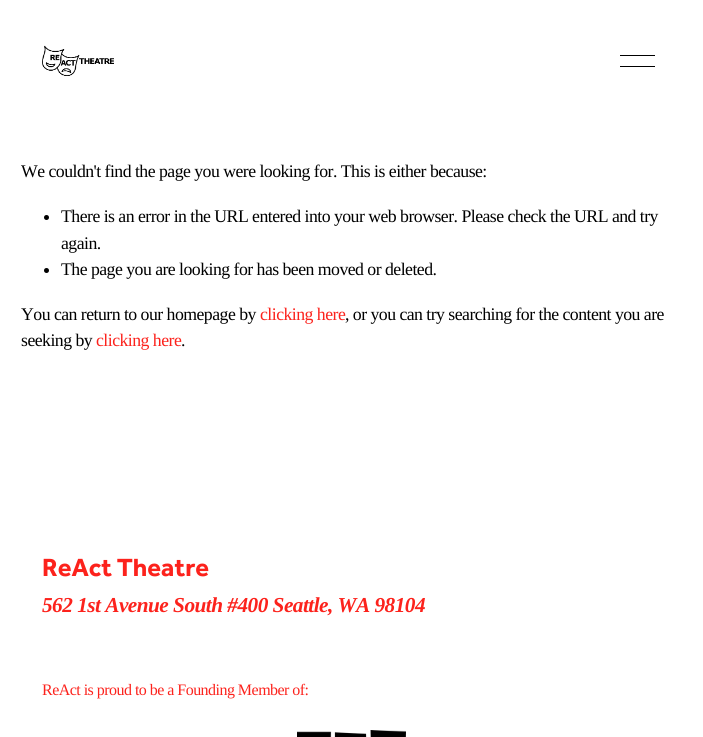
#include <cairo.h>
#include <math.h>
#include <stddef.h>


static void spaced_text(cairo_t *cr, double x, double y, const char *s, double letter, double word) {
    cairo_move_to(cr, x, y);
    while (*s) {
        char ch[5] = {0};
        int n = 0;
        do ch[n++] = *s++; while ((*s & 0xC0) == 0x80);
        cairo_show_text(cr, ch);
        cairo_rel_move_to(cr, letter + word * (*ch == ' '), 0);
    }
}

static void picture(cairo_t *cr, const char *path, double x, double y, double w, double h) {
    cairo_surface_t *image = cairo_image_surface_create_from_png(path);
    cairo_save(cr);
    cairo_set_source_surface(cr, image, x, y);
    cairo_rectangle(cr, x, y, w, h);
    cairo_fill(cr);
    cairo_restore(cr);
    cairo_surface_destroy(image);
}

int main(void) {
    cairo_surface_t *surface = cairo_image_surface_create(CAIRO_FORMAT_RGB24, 703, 737);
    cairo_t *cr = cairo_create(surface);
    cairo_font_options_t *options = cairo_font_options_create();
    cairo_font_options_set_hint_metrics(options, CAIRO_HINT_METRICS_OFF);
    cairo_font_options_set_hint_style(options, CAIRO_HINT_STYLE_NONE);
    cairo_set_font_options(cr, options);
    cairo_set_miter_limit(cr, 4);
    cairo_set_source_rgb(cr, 1, 1, 1);
    cairo_paint(cr);
    picture(cr, "img1.png", 42, 45, 72, 31);
    cairo_set_source_rgb(cr, 0, 0, 0);
    cairo_rectangle(cr, 620, 55, 35, 1);
    cairo_fill(cr);
    cairo_rectangle(cr, 620, 66, 35, 1);
    cairo_fill(cr);
    cairo_select_font_face(cr, "Liberation Serif", CAIRO_FONT_SLANT_NORMAL, CAIRO_FONT_WEIGHT_NORMAL);
    cairo_set_font_size(cr, 17.75);
    spaced_text(cr, 21, 177, "We couldn't find the page you were looking for. This is either because:", -0.53, 0);
    cairo_new_path(cr);
    cairo_arc(cr, 46.5, 217.5, 2.5, 0, 2 * M_PI);
    cairo_fill(cr);
    spaced_text(cr, 61, 222, "There is an error in the URL entered into your web browser. Please check the URL and try", -0.53, 0);
    spaced_text(cr, 61, 249, "again.", -0.53, 0);
    cairo_new_path(cr);
    cairo_arc(cr, 46.5, 270.5, 2.5, 0, 2 * M_PI);
    cairo_fill(cr);
    spaced_text(cr, 61, 275, "The page you are looking for has been moved or deleted.", -0.53, 0);
    spaced_text(cr, 21, 320, "You can return to our homepage by", -0.53, 0);
    cairo_set_source_rgb(cr, 0.988, 0.133, 0.11);
    spaced_text(cr, 260, 320, "clicking here", -0.53, 0);
    cairo_set_source_rgb(cr, 0, 0, 0);
    spaced_text(cr, 345, 320, ", or you can try searching for the content you are", -0.53, 0);
    spaced_text(cr, 21, 346, "seeking by", -0.53, 0);
    cairo_set_source_rgb(cr, 0.988, 0.133, 0.11);
    spaced_text(cr, 96, 346, "clicking here", -0.53, 0);
    cairo_set_source_rgb(cr, 0, 0, 0);
    spaced_text(cr, 181, 346, ".", -0.53, 0);
    cairo_select_font_face(cr, "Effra", CAIRO_FONT_SLANT_NORMAL, CAIRO_FONT_WEIGHT_BOLD);
    cairo_set_font_size(cr, 25.75);
    cairo_set_source_rgb(cr, 0.988, 0.133, 0.11);
    cairo_move_to(cr, 42, 576);
    cairo_show_text(cr, "ReAct Theatre");
    cairo_select_font_face(cr, "Liberation Serif", CAIRO_FONT_SLANT_ITALIC, CAIRO_FONT_WEIGHT_BOLD);
    cairo_set_font_size(cr, 21.3);
    spaced_text(cr, 42, 612, "562 1st Avenue South #400 Seattle, WA 98104", -0.53, 0);
    cairo_select_font_face(cr, "Liberation Serif", CAIRO_FONT_SLANT_NORMAL, CAIRO_FONT_WEIGHT_NORMAL);
    cairo_set_font_size(cr, 16);
    spaced_text(cr, 42, 695, "ReAct is proud to be a Founding Member of:", -0.53, 0);
    picture(cr, "img2.png", 297, 730, 109, 7);
    cairo_surface_write_to_png(surface, "page.png");
    cairo_font_options_destroy(options);
    cairo_destroy(cr);
    cairo_surface_destroy(surface);
    return 0;
}
